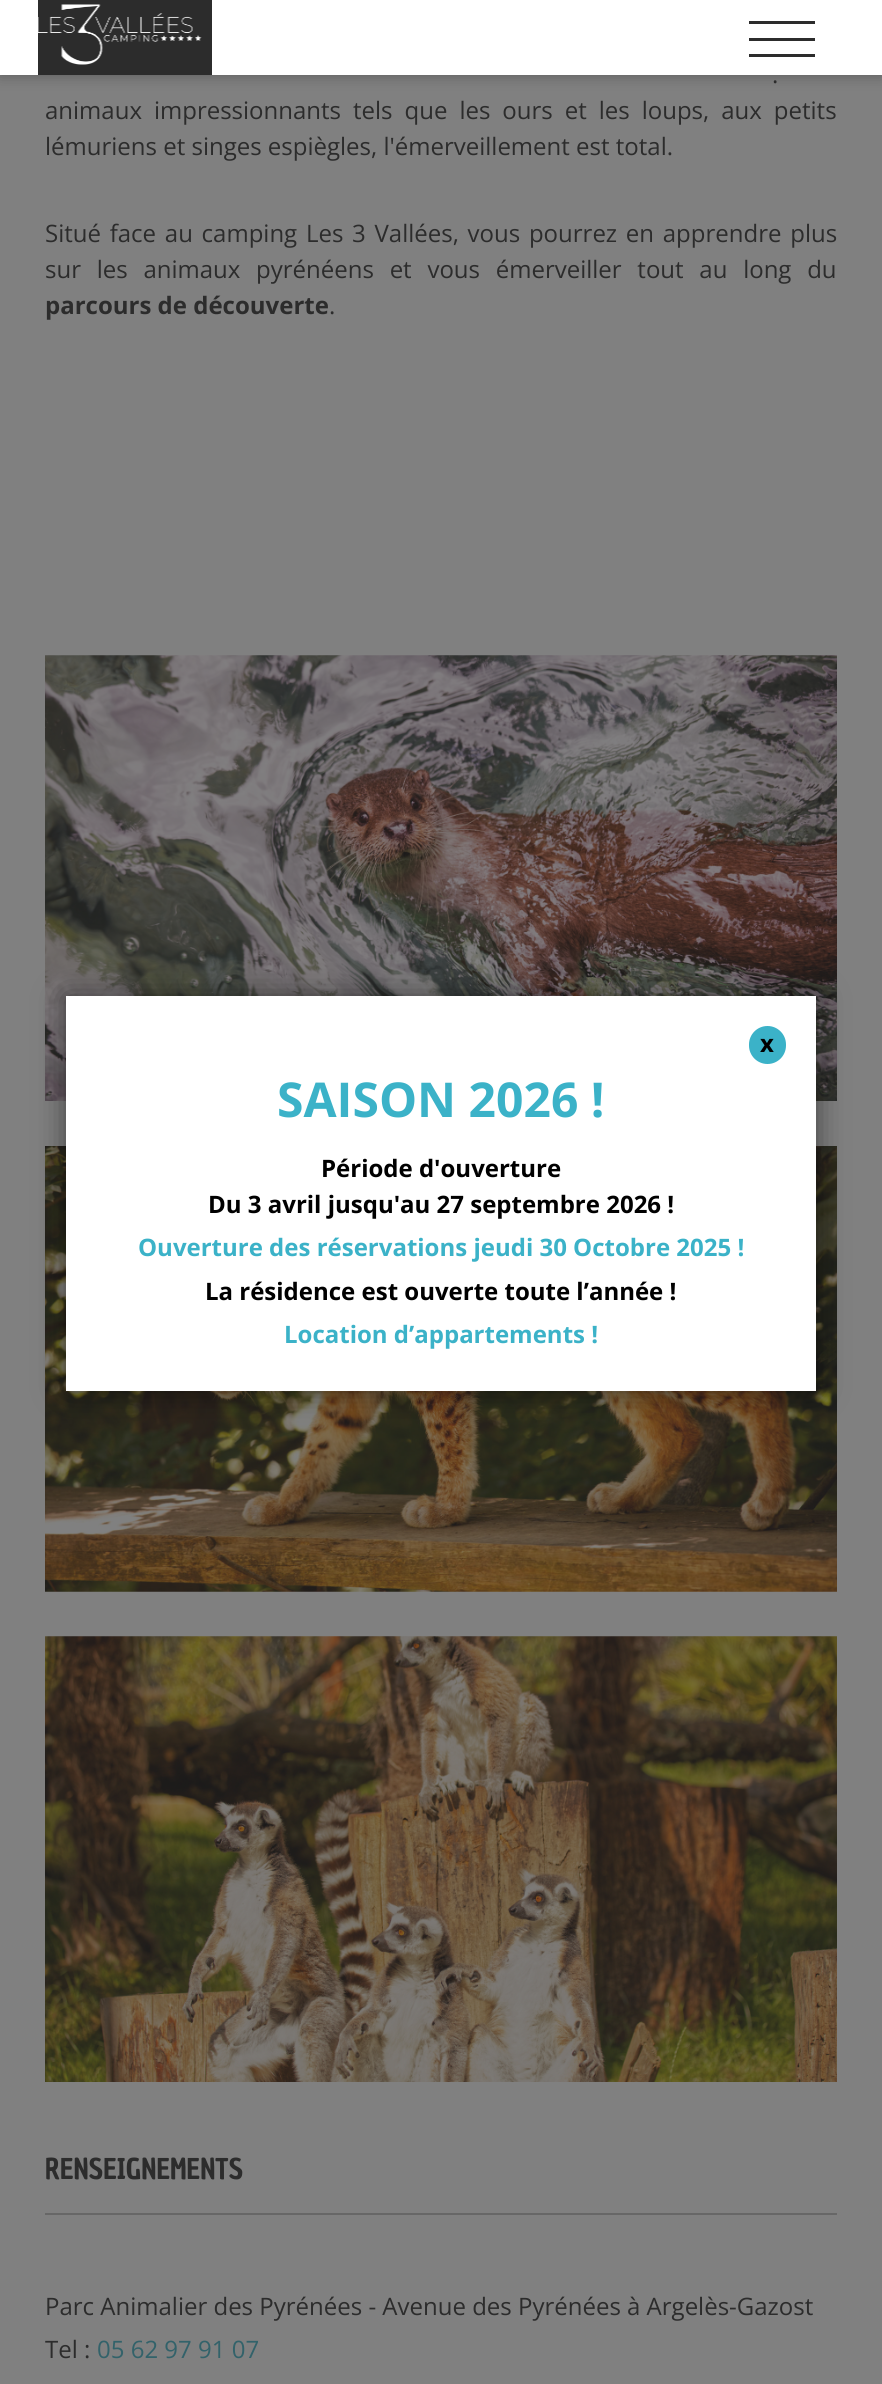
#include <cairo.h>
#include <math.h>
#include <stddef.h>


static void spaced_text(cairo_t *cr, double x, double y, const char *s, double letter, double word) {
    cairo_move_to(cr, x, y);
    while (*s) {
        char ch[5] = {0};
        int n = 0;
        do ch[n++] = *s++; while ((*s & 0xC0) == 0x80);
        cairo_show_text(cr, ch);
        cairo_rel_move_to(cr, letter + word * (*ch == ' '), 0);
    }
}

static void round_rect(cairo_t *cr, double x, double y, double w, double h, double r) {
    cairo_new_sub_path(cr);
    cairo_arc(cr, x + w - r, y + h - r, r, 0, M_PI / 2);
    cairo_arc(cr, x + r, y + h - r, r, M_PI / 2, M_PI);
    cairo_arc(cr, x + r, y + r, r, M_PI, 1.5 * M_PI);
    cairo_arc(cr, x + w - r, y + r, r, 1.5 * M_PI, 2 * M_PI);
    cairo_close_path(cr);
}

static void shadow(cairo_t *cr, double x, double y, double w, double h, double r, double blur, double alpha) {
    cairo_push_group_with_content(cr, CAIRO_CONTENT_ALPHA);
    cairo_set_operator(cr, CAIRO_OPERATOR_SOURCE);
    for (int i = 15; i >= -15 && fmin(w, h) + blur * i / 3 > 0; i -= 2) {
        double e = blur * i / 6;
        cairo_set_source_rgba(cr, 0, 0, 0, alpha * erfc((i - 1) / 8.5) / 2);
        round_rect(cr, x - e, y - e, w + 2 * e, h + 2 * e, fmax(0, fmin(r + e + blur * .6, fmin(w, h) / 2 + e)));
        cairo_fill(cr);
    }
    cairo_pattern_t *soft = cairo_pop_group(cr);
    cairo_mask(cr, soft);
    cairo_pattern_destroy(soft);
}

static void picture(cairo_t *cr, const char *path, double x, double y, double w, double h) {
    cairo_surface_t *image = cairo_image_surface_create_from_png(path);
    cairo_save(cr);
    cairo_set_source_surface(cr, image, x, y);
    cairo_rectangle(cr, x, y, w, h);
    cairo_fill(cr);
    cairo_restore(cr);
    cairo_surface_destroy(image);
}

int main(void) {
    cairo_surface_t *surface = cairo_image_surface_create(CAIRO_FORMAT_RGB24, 882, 2384);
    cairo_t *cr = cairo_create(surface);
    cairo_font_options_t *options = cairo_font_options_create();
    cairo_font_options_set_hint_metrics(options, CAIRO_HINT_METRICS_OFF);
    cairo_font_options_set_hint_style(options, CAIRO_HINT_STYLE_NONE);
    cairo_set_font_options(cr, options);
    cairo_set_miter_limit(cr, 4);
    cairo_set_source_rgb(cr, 0.502, 0.502, 0.502);
    cairo_paint(cr);
    cairo_set_source_rgb(cr, 0, 0, 0);
    shadow(cr, 0, 0, 882, 75, 0, 7.5, 0.3);
    cairo_set_source_rgb(cr, 1, 1, 1);
    cairo_rectangle(cr, 0, 0, 882, 75);
    cairo_fill(cr);
    cairo_set_source_rgb(cr, 0.173, 0.173, 0.173);
    cairo_rectangle(cr, 38, 0, 174, 75);
    cairo_fill(cr);
    picture(cr, "img1.png", 38, 4, 164, 61);
    cairo_rectangle(cr, 749, 21, 66, 3);
    cairo_fill(cr);
    cairo_rectangle(cr, 749, 38, 66, 3);
    cairo_fill(cr);
    cairo_rectangle(cr, 749, 54, 66, 3);
    cairo_fill(cr);
    cairo_select_font_face(cr, "Open Sans", CAIRO_FONT_SLANT_NORMAL, CAIRO_FONT_WEIGHT_NORMAL);
    cairo_set_font_size(cr, 24);
    spaced_text(cr, 772, 83, ".", 0, 10);
    spaced_text(cr, 45, 119, "animaux impressionnants tels que les ours et les loups, aux petits", 0, 5.75);
    cairo_move_to(cr, 45, 155);
    cairo_show_text(cr, "lémuriens et singes espiègles, l'émerveillement est total.");
    spaced_text(cr, 45, 242, "Situé face au camping Les 3 Vallées, vous pourrez en apprendre plus", 0, 2.5);
    spaced_text(cr, 45, 278, "sur les animaux pyrénéens et vous émerveiller tout au long du", 0, 9.5);
    cairo_select_font_face(cr, "Open Sans", CAIRO_FONT_SLANT_NORMAL, CAIRO_FONT_WEIGHT_BOLD);
    cairo_move_to(cr, 45, 314);
    cairo_show_text(cr, "parcours de découverte");
    cairo_select_font_face(cr, "Open Sans", CAIRO_FONT_SLANT_NORMAL, CAIRO_FONT_WEIGHT_NORMAL);
    cairo_move_to(cr, 329, 314);
    cairo_show_text(cr, ".");
    picture(cr, "img2.png", 45, 655, 792, 1);
    picture(cr, "img3.png", 45, 655, 792, 446);
    picture(cr, "img4.png", 45, 1591, 792, 1);
    picture(cr, "img5.png", 45, 1146, 792, 446);
    picture(cr, "img6.png", 45, 1636, 792, 1);
    picture(cr, "img7.png", 45, 1636, 792, 446);
    cairo_select_font_face(cr, "Chau Philomene One", CAIRO_FONT_SLANT_NORMAL, CAIRO_FONT_WEIGHT_NORMAL);
    cairo_set_font_size(cr, 28);
    cairo_move_to(cr, 45, 2179);
    cairo_show_text(cr, "RENSEIGNEMENTS");
    cairo_set_source_rgb(cr, 0.404, 0.404, 0.404);
    cairo_rectangle(cr, 45, 2213, 792, 2);
    cairo_fill(cr);
    cairo_select_font_face(cr, "Open Sans", CAIRO_FONT_SLANT_NORMAL, CAIRO_FONT_WEIGHT_NORMAL);
    cairo_set_font_size(cr, 24);
    cairo_set_source_rgb(cr, 0.173, 0.173, 0.173);
    cairo_move_to(cr, 45, 2315);
    cairo_show_text(cr, "Parc Animalier des Pyrénées - Avenue des Pyrénées à Argelès-Gazost");
    cairo_move_to(cr, 45, 2358);
    cairo_show_text(cr, "Tel :");
    cairo_set_source_rgb(cr, 0.196, 0.384, 0.416);
    cairo_move_to(cr, 97, 2358);
    cairo_show_text(cr, "05 62 97 91 07");
    cairo_set_source_rgb(cr, 0, 0, 0);
    shadow(cr, 66, 996, 750, 395, 0, 15, 0.5);
    cairo_set_source_rgb(cr, 1, 1, 1);
    cairo_rectangle(cr, 66, 996, 750, 395);
    cairo_fill(cr);
    cairo_set_source_rgb(cr, 0.231, 0.698, 0.784);
    round_rect(cr, 749, 1026, 37, 38, 18.5);
    cairo_fill(cr);
    cairo_select_font_face(cr, "Open Sans", CAIRO_FONT_SLANT_NORMAL, CAIRO_FONT_WEIGHT_BOLD);
    cairo_set_source_rgb(cr, 0, 0, 0);
    cairo_move_to(cr, 760, 1052);
    cairo_show_text(cr, "x");
    cairo_set_font_size(cr, 48);
    cairo_set_source_rgb(cr, 0.231, 0.698, 0.784);
    cairo_move_to(cr, 277, 1117);
    cairo_show_text(cr, "SAISON 2026 !");
    cairo_set_font_size(cr, 24);
    cairo_set_source_rgb(cr, 0, 0, 0);
    cairo_move_to(cr, 321, 1177);
    cairo_show_text(cr, "Période d'ouverture");
    cairo_move_to(cr, 208, 1213);
    cairo_show_text(cr, "Du 3 avril jusqu'au 27 septembre 2026 !");
    cairo_set_source_rgb(cr, 0.231, 0.698, 0.784);
    cairo_move_to(cr, 138, 1256);
    cairo_show_text(cr, "Ouverture des réservations jeudi 30 Octobre 2025 !");
    cairo_set_source_rgb(cr, 0, 0, 0);
    cairo_move_to(cr, 205, 1300);
    cairo_show_text(cr, "La résidence est ouverte toute l’année !");
    cairo_set_source_rgb(cr, 0.231, 0.698, 0.784);
    cairo_move_to(cr, 284, 1343);
    cairo_show_text(cr, "Location d’appartements !");
    cairo_surface_write_to_png(surface, "page.png");
    cairo_font_options_destroy(options);
    cairo_destroy(cr);
    cairo_surface_destroy(surface);
    return 0;
}
